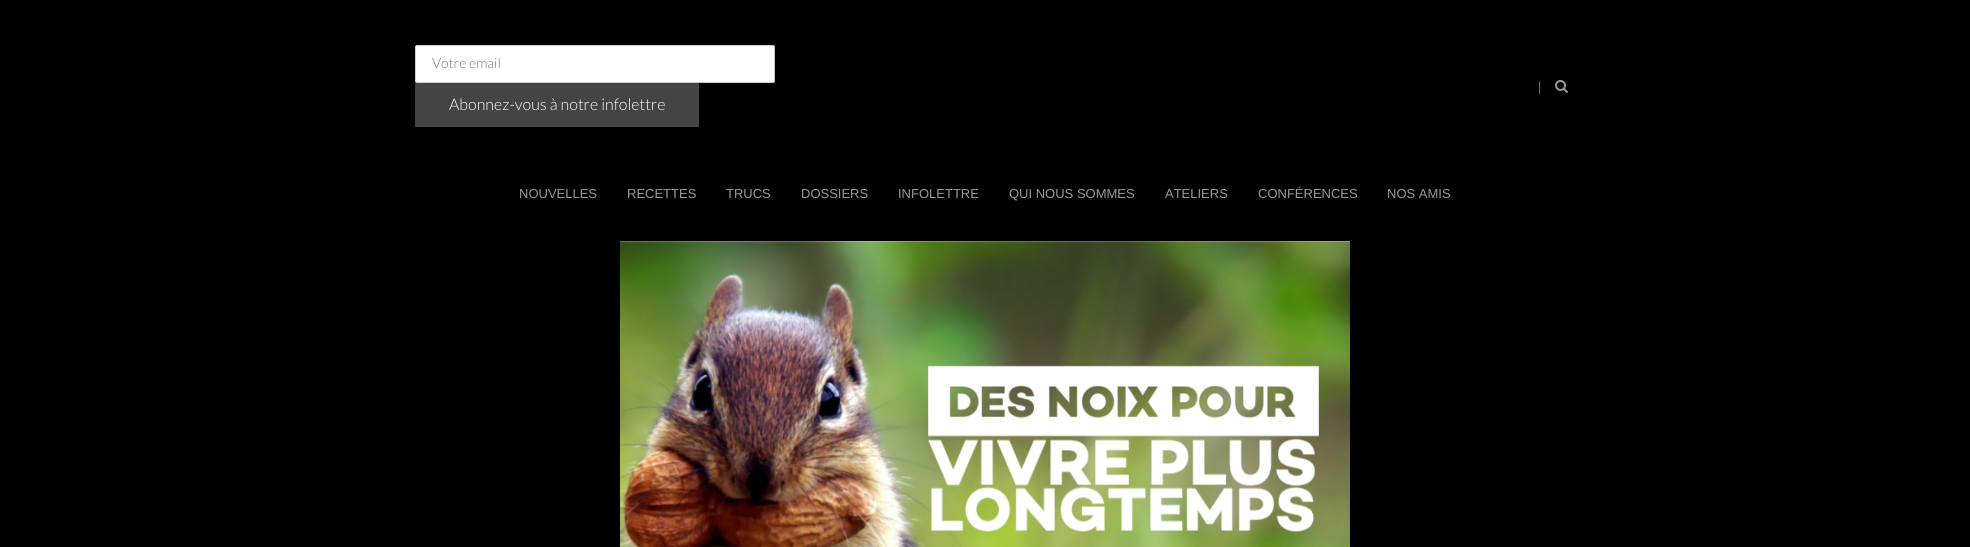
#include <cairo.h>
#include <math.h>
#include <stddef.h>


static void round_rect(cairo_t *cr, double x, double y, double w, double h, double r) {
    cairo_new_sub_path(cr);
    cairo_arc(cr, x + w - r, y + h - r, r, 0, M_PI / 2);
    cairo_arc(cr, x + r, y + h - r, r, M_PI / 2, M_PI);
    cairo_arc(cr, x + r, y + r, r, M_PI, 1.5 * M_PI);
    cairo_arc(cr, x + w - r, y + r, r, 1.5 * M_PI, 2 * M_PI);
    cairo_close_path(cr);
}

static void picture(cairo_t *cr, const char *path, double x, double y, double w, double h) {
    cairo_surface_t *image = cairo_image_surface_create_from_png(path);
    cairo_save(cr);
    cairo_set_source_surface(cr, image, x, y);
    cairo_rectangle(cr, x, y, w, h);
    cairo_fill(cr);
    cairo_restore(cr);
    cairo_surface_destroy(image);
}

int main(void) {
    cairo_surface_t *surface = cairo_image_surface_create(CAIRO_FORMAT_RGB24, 1970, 547);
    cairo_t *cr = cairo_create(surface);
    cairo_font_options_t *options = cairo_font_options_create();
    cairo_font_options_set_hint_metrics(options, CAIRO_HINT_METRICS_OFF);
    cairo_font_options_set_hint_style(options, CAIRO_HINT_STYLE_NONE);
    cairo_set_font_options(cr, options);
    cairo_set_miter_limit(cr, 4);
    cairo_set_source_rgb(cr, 0, 0, 0);
    cairo_paint(cr);
    cairo_set_source_rgb(cr, 1, 1, 1);
    round_rect(cr, 415.5, 45.5, 359, 37, 1.5);
    cairo_fill_preserve(cr);
    cairo_set_source_rgb(cr, 0.8, 0.8, 0.8);
    cairo_set_line_width(cr, 1);
    cairo_stroke(cr);
    cairo_select_font_face(cr, "Lato Light", CAIRO_FONT_SLANT_NORMAL, CAIRO_FONT_WEIGHT_NORMAL);
    cairo_set_font_size(cr, 14);
    cairo_set_source_rgb(cr, 0.459, 0.459, 0.459);
    cairo_move_to(cr, 432, 68);
    cairo_show_text(cr, "Votre email");
    cairo_set_source_rgb(cr, 0.267, 0.267, 0.267);
    cairo_rectangle(cr, 415, 83, 284, 44);
    cairo_fill(cr);
    cairo_set_font_size(cr, 16);
    cairo_set_source_rgb(cr, 1, 1, 1);
    cairo_move_to(cr, 449, 110);
    cairo_show_text(cr, "Abonnez-vous à notre infolettre");
    cairo_select_font_face(cr, "Liberation Serif", CAIRO_FONT_SLANT_NORMAL, CAIRO_FONT_WEIGHT_NORMAL);
    cairo_set_font_size(cr, 14);
    cairo_set_source_rgb(cr, 0.6, 0.6, 0.6);
    cairo_move_to(cr, 1538, 91);
    cairo_show_text(cr, "|");
    picture(cr, "img1.png", 1555, 80, 13, 13);
    cairo_select_font_face(cr, "Liberation Sans", CAIRO_FONT_SLANT_NORMAL, CAIRO_FONT_WEIGHT_NORMAL);
    cairo_set_font_size(cr, 13);
    cairo_move_to(cr, 519, 198);
    cairo_show_text(cr, "NOUVELLES");
    cairo_move_to(cr, 627, 198);
    cairo_show_text(cr, "RECETTES");
    cairo_move_to(cr, 726, 198);
    cairo_show_text(cr, "TRUCS");
    cairo_move_to(cr, 801, 198);
    cairo_show_text(cr, "DOSSIERS");
    cairo_move_to(cr, 898, 198);
    cairo_show_text(cr, "INFOLETTRE");
    cairo_move_to(cr, 1009, 198);
    cairo_show_text(cr, "QUI NOUS SOMMES");
    cairo_move_to(cr, 1165, 198);
    cairo_show_text(cr, "ATELIERS");
    cairo_move_to(cr, 1258, 198);
    cairo_show_text(cr, "CONFÉRENCES");
    cairo_move_to(cr, 1387, 198);
    cairo_show_text(cr, "NOS AMIS");
    picture(cr, "img2.png", 620, 241, 730, 306);
    cairo_surface_write_to_png(surface, "page.png");
    cairo_font_options_destroy(options);
    cairo_destroy(cr);
    cairo_surface_destroy(surface);
    return 0;
}
